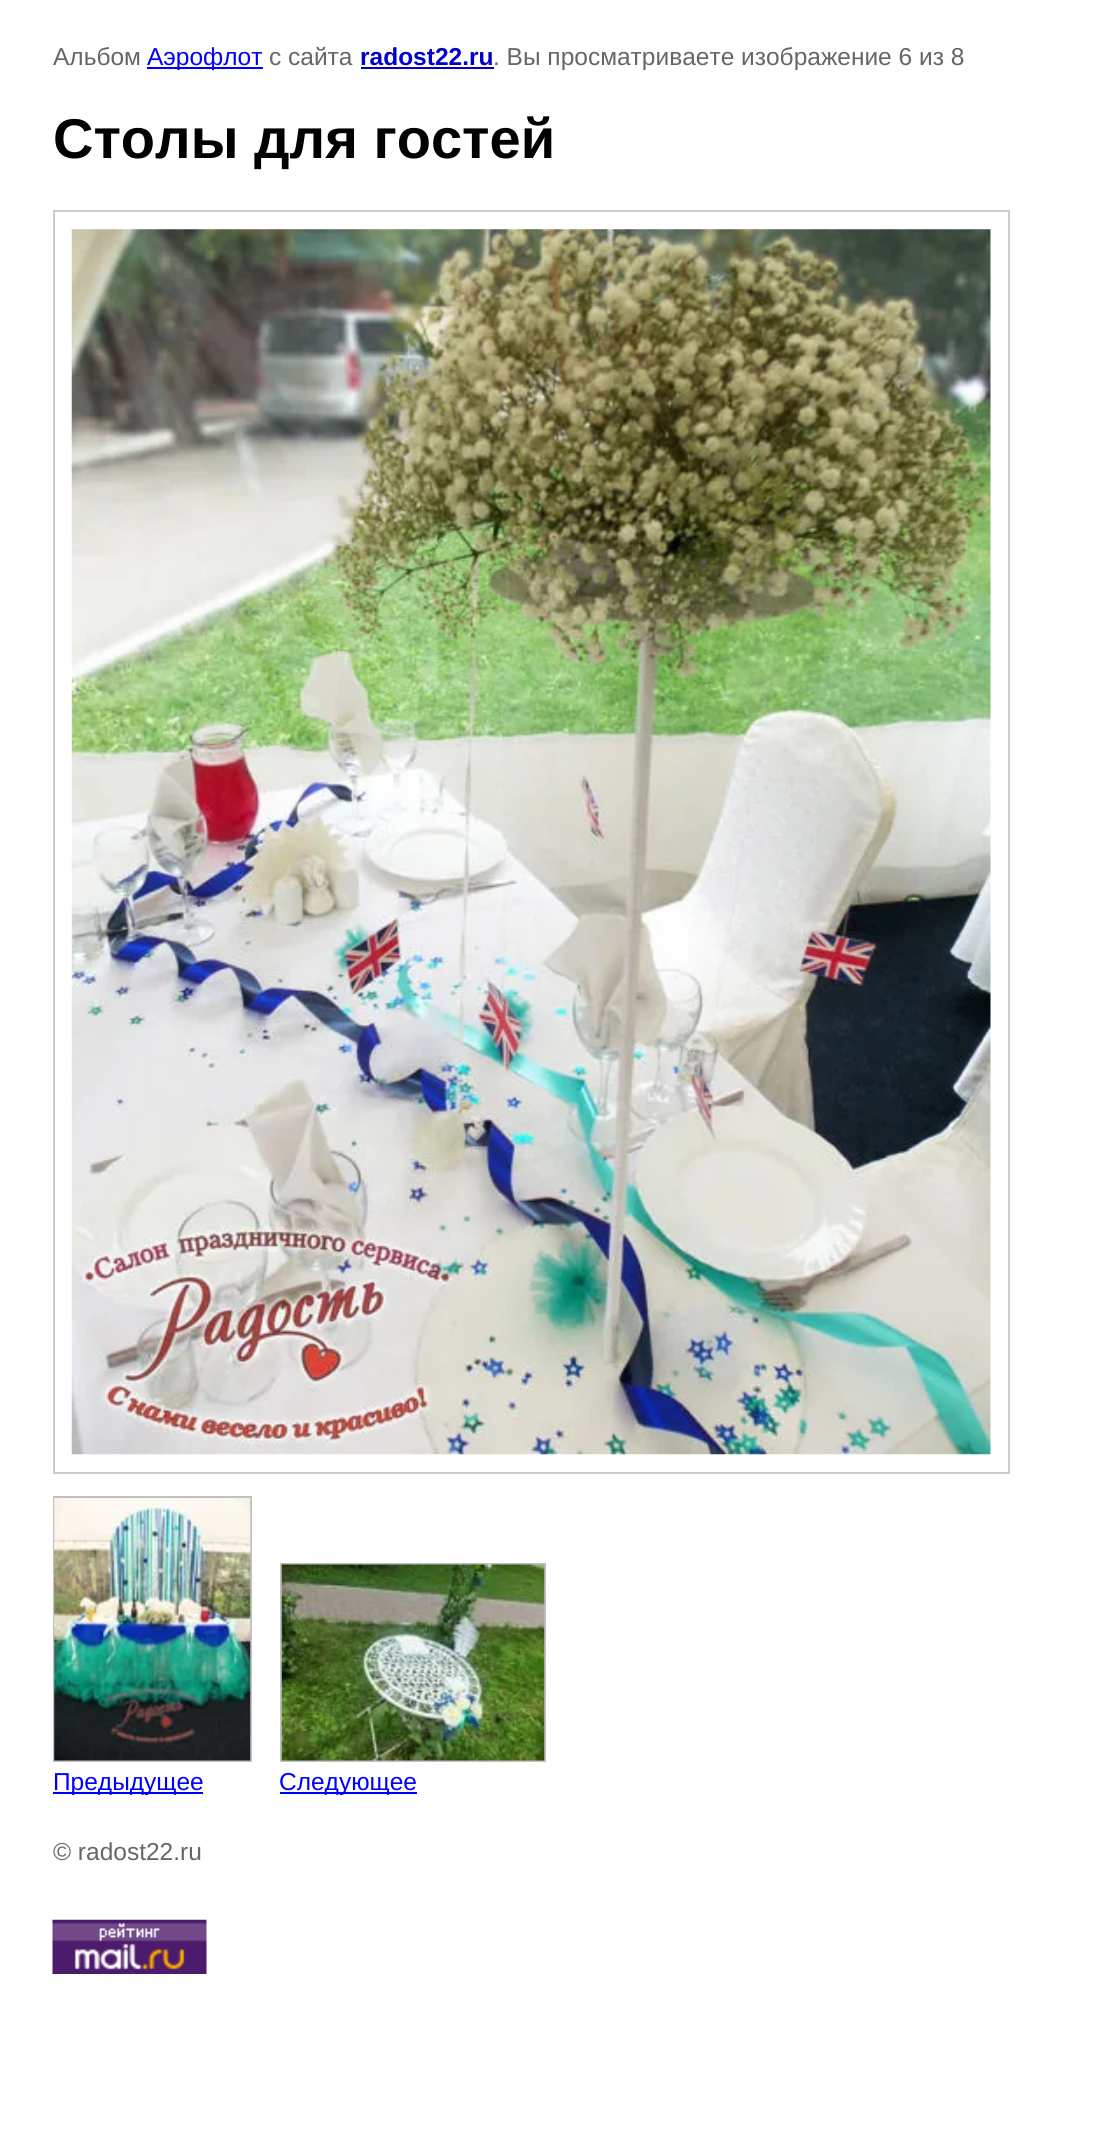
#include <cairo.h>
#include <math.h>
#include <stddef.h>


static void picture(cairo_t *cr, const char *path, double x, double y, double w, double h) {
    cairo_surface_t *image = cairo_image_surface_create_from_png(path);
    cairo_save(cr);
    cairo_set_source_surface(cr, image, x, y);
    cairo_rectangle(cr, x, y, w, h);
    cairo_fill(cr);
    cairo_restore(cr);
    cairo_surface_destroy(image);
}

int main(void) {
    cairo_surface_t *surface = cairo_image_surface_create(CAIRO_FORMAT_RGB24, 1094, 2155);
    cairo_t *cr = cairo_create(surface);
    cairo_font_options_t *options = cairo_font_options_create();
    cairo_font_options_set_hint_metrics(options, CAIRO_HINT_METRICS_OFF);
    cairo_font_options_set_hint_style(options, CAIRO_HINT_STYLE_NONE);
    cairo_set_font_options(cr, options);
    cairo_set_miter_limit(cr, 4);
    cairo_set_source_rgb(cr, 1, 1, 1);
    cairo_paint(cr);
    cairo_select_font_face(cr, "Liberation Sans", CAIRO_FONT_SLANT_NORMAL, CAIRO_FONT_WEIGHT_NORMAL);
    cairo_set_font_size(cr, 24.5);
    cairo_set_source_rgb(cr, 0.4, 0.4, 0.4);
    cairo_move_to(cr, 53, 65);
    cairo_show_text(cr, "Альбом");
    cairo_set_source_rgb(cr, 0, 0, 1);
    cairo_rectangle(cr, 147, 67, 116, 2);
    cairo_fill(cr);
    cairo_move_to(cr, 147, 65);
    cairo_show_text(cr, "Аэрофлот");
    cairo_set_source_rgb(cr, 0.4, 0.4, 0.4);
    cairo_move_to(cr, 269, 65);
    cairo_show_text(cr, "с сайта");
    cairo_select_font_face(cr, "Liberation Sans", CAIRO_FONT_SLANT_NORMAL, CAIRO_FONT_WEIGHT_BOLD);
    cairo_set_source_rgb(cr, 0, 0, 0.8);
    cairo_move_to(cr, 360, 65);
    cairo_show_text(cr, "radost22.ru");
    cairo_rectangle(cr, 361, 67, 133, 2);
    cairo_fill(cr);
    cairo_select_font_face(cr, "Liberation Sans", CAIRO_FONT_SLANT_NORMAL, CAIRO_FONT_WEIGHT_NORMAL);
    cairo_set_source_rgb(cr, 0.4, 0.4, 0.4);
    cairo_move_to(cr, 493, 65);
    cairo_show_text(cr, ". Вы просматриваете изображение 6 из 8");
    cairo_select_font_face(cr, "Liberation Sans", CAIRO_FONT_SLANT_NORMAL, CAIRO_FONT_WEIGHT_BOLD);
    cairo_set_font_size(cr, 56);
    cairo_set_source_rgb(cr, 0, 0, 0);
    cairo_move_to(cr, 53, 158);
    cairo_show_text(cr, "Столы для гостей");
    cairo_rectangle(cr, 54, 211, 955, 1262);
    cairo_set_source_rgb(cr, 0.8, 0.8, 0.8);
    cairo_stroke(cr);
    picture(cr, "img1.png", 71, 229, 920, 1226);
    cairo_rectangle(cr, 54, 1497, 197, 264);
    cairo_set_source_rgb(cr, 0.753, 0.753, 0.753);
    cairo_stroke(cr);
    picture(cr, "img2.png", 54, 1498, 197, 263);
    cairo_set_source_rgb(cr, 0, 0, 1);
    cairo_rectangle(cr, 53, 1792, 150, 2);
    cairo_fill(cr);
    cairo_select_font_face(cr, "Liberation Sans", CAIRO_FONT_SLANT_NORMAL, CAIRO_FONT_WEIGHT_NORMAL);
    cairo_set_font_size(cr, 24.5);
    cairo_move_to(cr, 53, 1790);
    cairo_show_text(cr, "Предыдущее");
    cairo_rectangle(cr, 281, 1564, 264, 197);
    cairo_set_source_rgb(cr, 0.753, 0.753, 0.753);
    cairo_stroke(cr);
    picture(cr, "img3.png", 281, 1564, 264, 197);
    cairo_set_source_rgb(cr, 0, 0, 1);
    cairo_rectangle(cr, 280, 1792, 137, 2);
    cairo_fill(cr);
    cairo_move_to(cr, 279, 1790);
    cairo_show_text(cr, "Следующее");
    cairo_set_source_rgb(cr, 0.4, 0.4, 0.4);
    cairo_move_to(cr, 53, 1860);
    cairo_show_text(cr, "© radost22.ru");
    picture(cr, "img4.png", 52, 1919, 155, 55);
    cairo_surface_write_to_png(surface, "page.png");
    cairo_font_options_destroy(options);
    cairo_destroy(cr);
    cairo_surface_destroy(surface);
    return 0;
}
